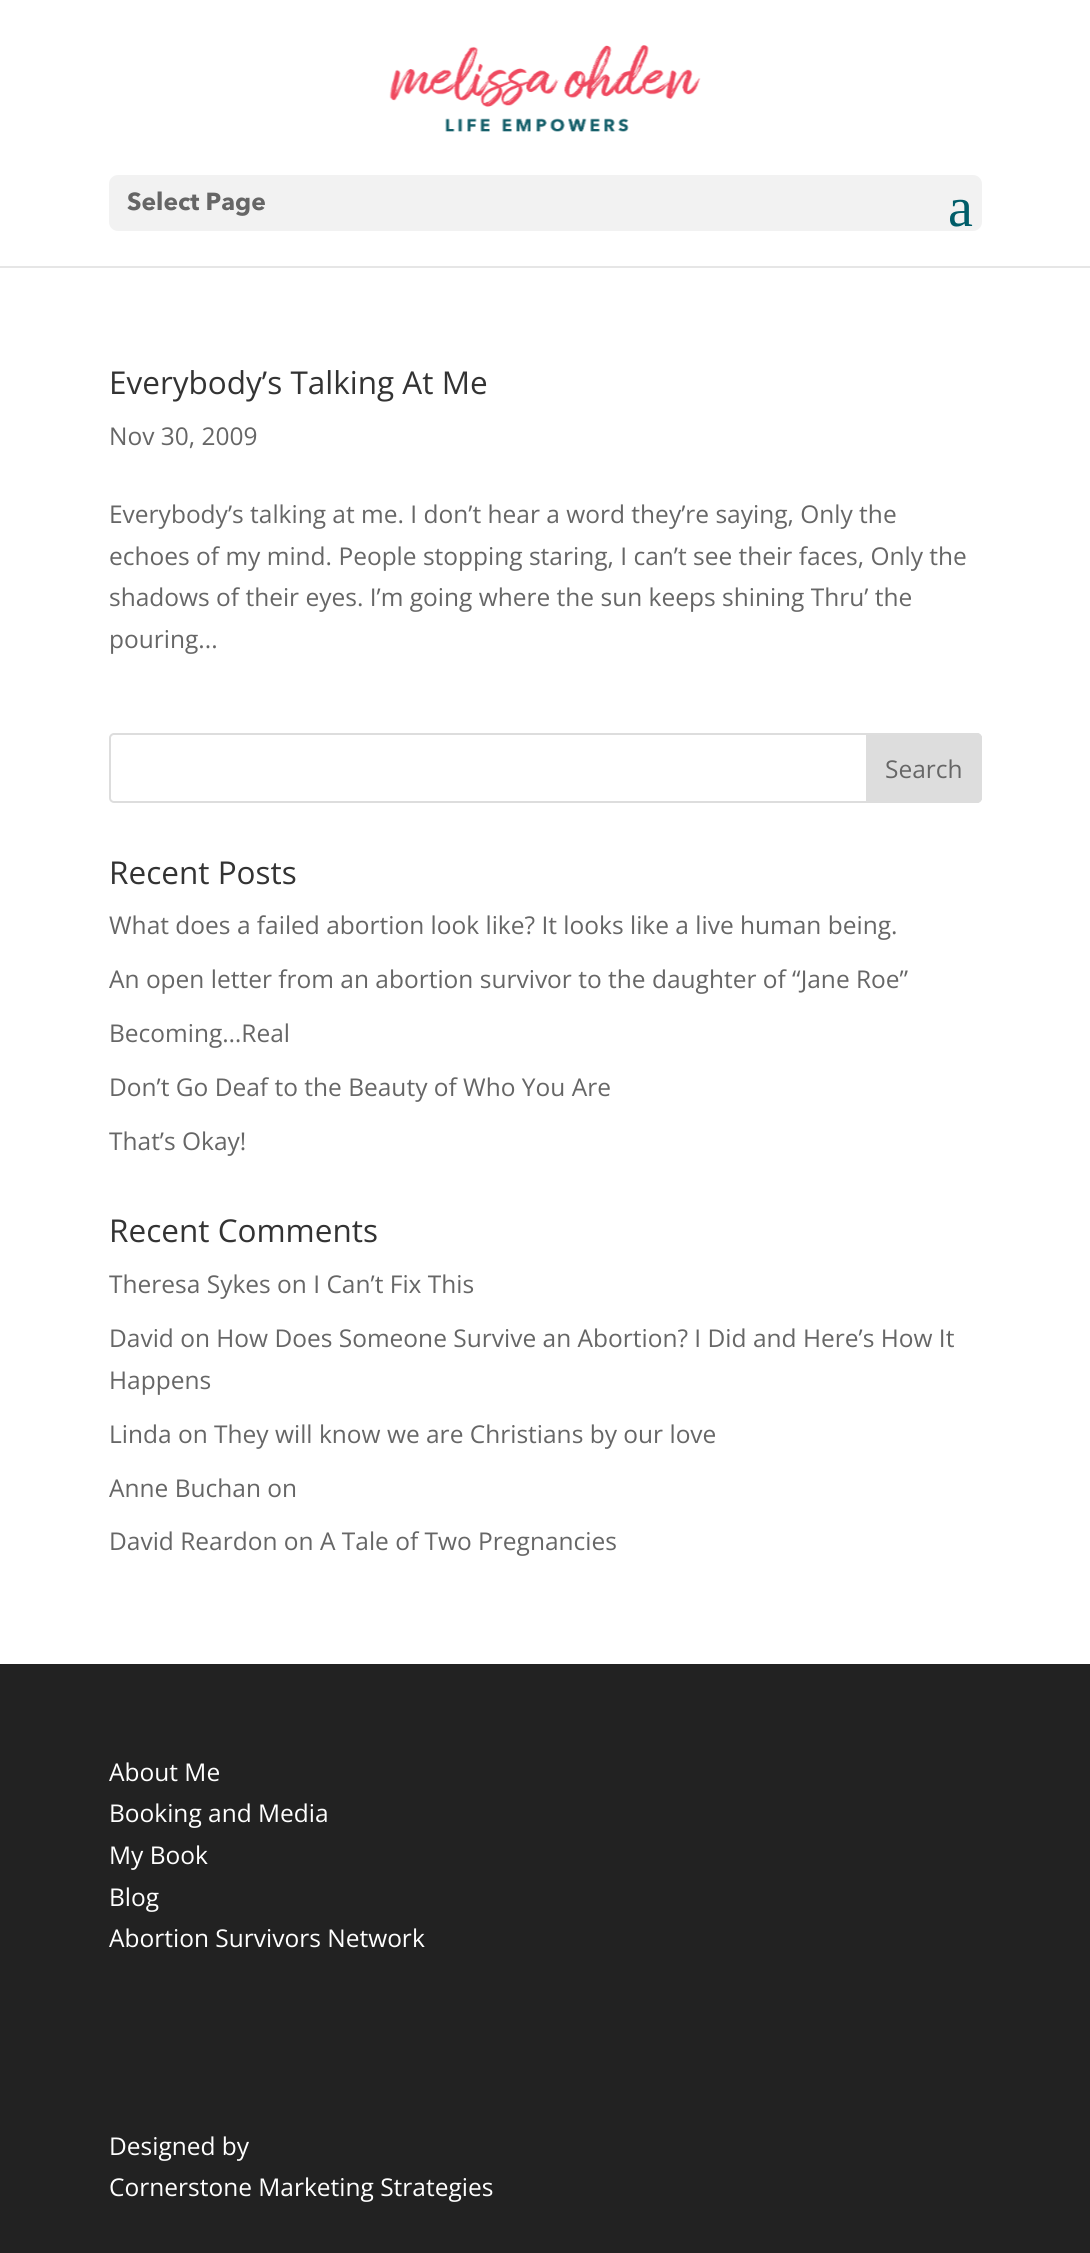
#include <cairo.h>
#include <math.h>
#include <stddef.h>


static void round_rect(cairo_t *cr, double x, double y, double w, double h, double r) {
    cairo_new_sub_path(cr);
    cairo_arc(cr, x + w - r, y + h - r, r, 0, M_PI / 2);
    cairo_arc(cr, x + r, y + h - r, r, M_PI / 2, M_PI);
    cairo_arc(cr, x + r, y + r, r, M_PI, 1.5 * M_PI);
    cairo_arc(cr, x + w - r, y + r, r, 1.5 * M_PI, 2 * M_PI);
    cairo_close_path(cr);
}

static void picture(cairo_t *cr, const char *path, double x, double y, double w, double h) {
    cairo_surface_t *image = cairo_image_surface_create_from_png(path);
    cairo_save(cr);
    cairo_set_source_surface(cr, image, x, y);
    cairo_rectangle(cr, x, y, w, h);
    cairo_fill(cr);
    cairo_restore(cr);
    cairo_surface_destroy(image);
}

int main(void) {
    cairo_surface_t *surface = cairo_image_surface_create(CAIRO_FORMAT_RGB24, 1090, 2253);
    cairo_t *cr = cairo_create(surface);
    cairo_font_options_t *options = cairo_font_options_create();
    cairo_font_options_set_hint_metrics(options, CAIRO_HINT_METRICS_OFF);
    cairo_font_options_set_hint_style(options, CAIRO_HINT_STYLE_NONE);
    cairo_set_font_options(cr, options);
    cairo_set_miter_limit(cr, 4);
    cairo_set_source_rgb(cr, 1, 1, 1);
    cairo_paint(cr);
    cairo_set_source_rgb(cr, 0.902, 0.902, 0.902);
    cairo_rectangle(cr, 0, 266, 1090, 2);
    cairo_fill(cr);
    picture(cr, "img1.png", 389, 45, 312, 87);
    cairo_set_source_rgb(cr, 0.949, 0.949, 0.949);
    round_rect(cr, 109, 175, 873, 56, 9);
    cairo_fill(cr);
    cairo_select_font_face(cr, "Avenir Next", CAIRO_FONT_SLANT_NORMAL, CAIRO_FONT_WEIGHT_BOLD);
    cairo_set_font_size(cr, 24.5);
    cairo_set_source_rgb(cr, 0.4, 0.4, 0.4);
    cairo_move_to(cr, 127, 210);
    cairo_show_text(cr, "Select Page");
    cairo_select_font_face(cr, "Liberation Serif", CAIRO_FONT_SLANT_NORMAL, CAIRO_FONT_WEIGHT_NORMAL);
    cairo_set_font_size(cr, 56);
    cairo_set_source_rgb(cr, 0, 0.365, 0.412);
    cairo_move_to(cr, 948, 226);
    cairo_show_text(cr, "a");
    cairo_select_font_face(cr, "Open Sans", CAIRO_FONT_SLANT_NORMAL, CAIRO_FONT_WEIGHT_NORMAL);
    cairo_set_font_size(cr, 31.5);
    cairo_set_source_rgb(cr, 0.2, 0.2, 0.2);
    cairo_move_to(cr, 109, 394);
    cairo_show_text(cr, "Everybody’s Talking At Me");
    cairo_set_font_size(cr, 24.5);
    cairo_set_source_rgb(cr, 0.4, 0.4, 0.4);
    cairo_move_to(cr, 109, 445);
    cairo_show_text(cr, "Nov 30, 2009");
    cairo_move_to(cr, 109, 523);
    cairo_show_text(cr, "Everybody’s talking at me. I don’t hear a word they’re saying, Only the");
    cairo_move_to(cr, 109, 565);
    cairo_show_text(cr, "echoes of my mind. People stopping staring, I can’t see their faces, Only the");
    cairo_move_to(cr, 109, 606);
    cairo_show_text(cr, "shadows of their eyes. I’m going where the sun keeps shining Thru’ the");
    cairo_move_to(cr, 109, 648);
    cairo_show_text(cr, "pouring...");
    round_rect(cr, 110, 734, 871, 68, 4);
    cairo_set_source_rgb(cr, 0.867, 0.867, 0.867);
    cairo_stroke(cr);
    cairo_new_path(cr);
    cairo_move_to(cr, 867, 734);
    cairo_line_to(cr, 977, 734);
    cairo_curve_to(cr, 979, 734, 981, 736, 981, 738);
    cairo_line_to(cr, 981, 798);
    cairo_curve_to(cr, 981, 800, 979, 802, 977, 802);
    cairo_line_to(cr, 867, 802);
    cairo_close_path(cr);
    cairo_fill_preserve(cr);
    cairo_stroke(cr);
    cairo_set_source_rgb(cr, 0.4, 0.4, 0.4);
    cairo_move_to(cr, 885, 778);
    cairo_show_text(cr, "Search");
    cairo_set_font_size(cr, 31.5);
    cairo_set_source_rgb(cr, 0.2, 0.2, 0.2);
    cairo_move_to(cr, 109, 884);
    cairo_show_text(cr, "Recent Posts");
    cairo_set_font_size(cr, 24.5);
    cairo_set_source_rgb(cr, 0.4, 0.4, 0.4);
    cairo_move_to(cr, 109, 934);
    cairo_show_text(cr, "What does a failed abortion look like? It looks like a live human being.");
    cairo_move_to(cr, 109, 988);
    cairo_show_text(cr, "An open letter from an abortion survivor to the daughter of “Jane Roe”");
    cairo_move_to(cr, 109, 1042);
    cairo_show_text(cr, "Becoming…Real");
    cairo_move_to(cr, 109, 1096);
    cairo_show_text(cr, "Don’t Go Deaf to the Beauty of Who You Are");
    cairo_move_to(cr, 109, 1150);
    cairo_show_text(cr, "That’s Okay!");
    cairo_set_font_size(cr, 31.5);
    cairo_set_source_rgb(cr, 0.2, 0.2, 0.2);
    cairo_move_to(cr, 109, 1242);
    cairo_show_text(cr, "Recent Comments");
    cairo_set_font_size(cr, 24.5);
    cairo_set_source_rgb(cr, 0.4, 0.4, 0.4);
    cairo_move_to(cr, 109, 1293);
    cairo_show_text(cr, "Theresa Sykes on I Can’t Fix This");
    cairo_move_to(cr, 109, 1347);
    cairo_show_text(cr, "David on How Does Someone Survive an Abortion? I Did and Here’s How It");
    cairo_move_to(cr, 109, 1389);
    cairo_show_text(cr, "Happens");
    cairo_move_to(cr, 109, 1443);
    cairo_show_text(cr, "Linda on They will know we are Christians by our love");
    cairo_move_to(cr, 109, 1497);
    cairo_show_text(cr, "Anne Buchan on");
    cairo_move_to(cr, 109, 1550);
    cairo_show_text(cr, "David Reardon on A Tale of Two Pregnancies");
    cairo_set_source_rgb(cr, 0.133, 0.133, 0.133);
    cairo_rectangle(cr, 0, 1664, 1090, 589);
    cairo_fill(cr);
    cairo_set_source_rgb(cr, 1, 1, 1);
    cairo_move_to(cr, 109, 1781);
    cairo_show_text(cr, "About Me");
    cairo_move_to(cr, 109, 1822);
    cairo_show_text(cr, "Booking and Media");
    cairo_move_to(cr, 109, 1864);
    cairo_show_text(cr, "My Book");
    cairo_move_to(cr, 109, 1906);
    cairo_show_text(cr, "Blog");
    cairo_move_to(cr, 109, 1947);
    cairo_show_text(cr, "Abortion Survivors Network");
    cairo_move_to(cr, 109, 2155);
    cairo_show_text(cr, "Designed by");
    cairo_move_to(cr, 109, 2196);
    cairo_show_text(cr, "Cornerstone Marketing Strategies");
    cairo_surface_write_to_png(surface, "page.png");
    cairo_font_options_destroy(options);
    cairo_destroy(cr);
    cairo_surface_destroy(surface);
    return 0;
}
